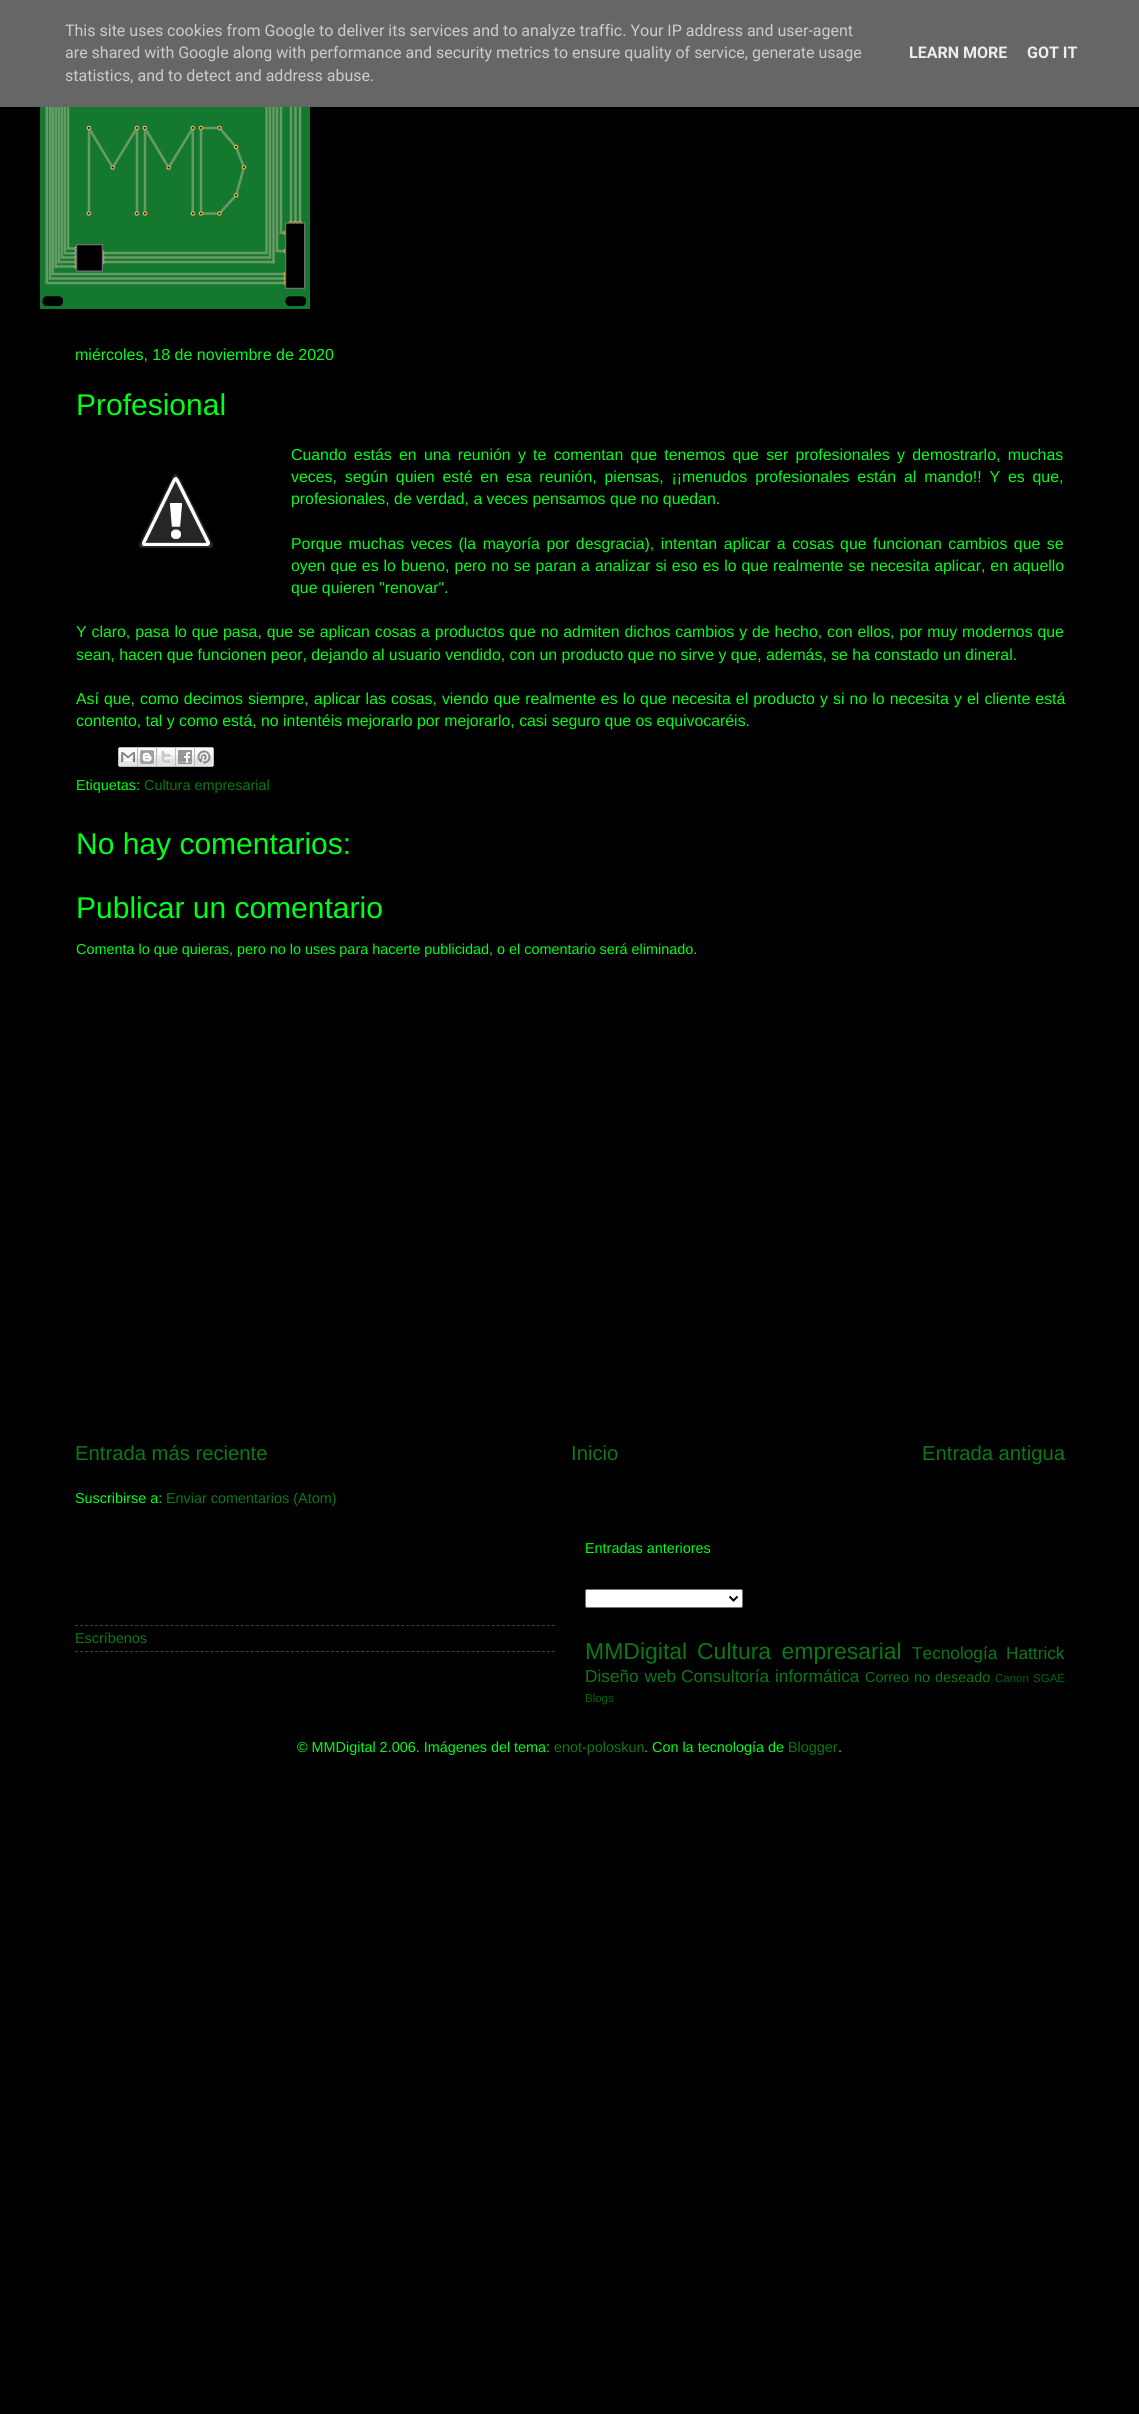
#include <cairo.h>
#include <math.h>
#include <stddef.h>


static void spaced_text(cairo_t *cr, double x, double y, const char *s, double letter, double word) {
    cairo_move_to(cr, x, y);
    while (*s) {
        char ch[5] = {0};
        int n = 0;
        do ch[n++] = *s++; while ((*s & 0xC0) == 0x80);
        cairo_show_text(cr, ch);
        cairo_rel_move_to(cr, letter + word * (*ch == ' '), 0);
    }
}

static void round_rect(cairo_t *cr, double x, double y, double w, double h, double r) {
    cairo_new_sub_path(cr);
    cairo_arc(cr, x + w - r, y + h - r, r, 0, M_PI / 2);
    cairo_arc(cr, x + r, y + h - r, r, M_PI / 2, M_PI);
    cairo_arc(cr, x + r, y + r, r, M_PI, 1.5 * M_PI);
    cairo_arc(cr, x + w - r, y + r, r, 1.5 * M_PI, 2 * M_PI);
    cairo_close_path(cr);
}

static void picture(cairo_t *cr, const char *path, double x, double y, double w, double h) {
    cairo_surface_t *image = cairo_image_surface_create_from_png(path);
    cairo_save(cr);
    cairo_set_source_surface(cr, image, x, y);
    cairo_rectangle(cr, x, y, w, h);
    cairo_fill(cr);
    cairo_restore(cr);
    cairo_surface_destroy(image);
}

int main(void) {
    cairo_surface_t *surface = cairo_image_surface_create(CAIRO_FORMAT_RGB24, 1139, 2414);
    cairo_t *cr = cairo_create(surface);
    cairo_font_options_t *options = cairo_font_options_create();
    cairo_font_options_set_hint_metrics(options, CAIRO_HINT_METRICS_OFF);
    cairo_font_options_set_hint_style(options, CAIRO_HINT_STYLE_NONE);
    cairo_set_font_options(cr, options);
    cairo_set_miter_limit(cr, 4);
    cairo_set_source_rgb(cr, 0, 0, 0);
    cairo_paint(cr);
    cairo_set_source_rgb(cr, 0.4, 0.4, 0.4);
    cairo_rectangle(cr, 0, 0, 1139, 107);
    cairo_fill(cr);
    cairo_select_font_face(cr, "Roboto", CAIRO_FONT_SLANT_NORMAL, CAIRO_FONT_WEIGHT_NORMAL);
    cairo_set_font_size(cr, 16);
    cairo_set_source_rgb(cr, 0.8, 0.8, 0.8);
    cairo_move_to(cr, 65, 36);
    cairo_show_text(cr, "This site uses cookies from Google to deliver its services and to analyze traffic. Your IP address and user-agent");
    cairo_move_to(cr, 65, 58);
    cairo_show_text(cr, "are shared with Google along with performance and security metrics to ensure quality of service, generate usage");
    cairo_move_to(cr, 65, 81);
    cairo_show_text(cr, "statistics, and to detect and address abuse.");
    cairo_select_font_face(cr, "Roboto", CAIRO_FONT_SLANT_NORMAL, CAIRO_FONT_WEIGHT_BOLD);
    cairo_set_source_rgb(cr, 0.933, 0.933, 0.933);
    cairo_move_to(cr, 909, 58);
    cairo_show_text(cr, "LEARN MORE");
    cairo_move_to(cr, 1027, 58);
    cairo_show_text(cr, "GOT IT");
    picture(cr, "img1.png", 40, 107, 270, 202);
    cairo_select_font_face(cr, "Liberation Sans", CAIRO_FONT_SLANT_NORMAL, CAIRO_FONT_WEIGHT_NORMAL);
    cairo_set_source_rgb(cr, 0, 1, 0.098);
    cairo_move_to(cr, 75, 360);
    cairo_show_text(cr, "miércoles, 18 de noviembre de 2020");
    cairo_set_font_size(cr, 30);
    cairo_move_to(cr, 76, 415);
    cairo_show_text(cr, "Profesional");
    picture(cr, "img2.png", 139, 474, 74, 74);
    cairo_set_font_size(cr, 15.85);
    spaced_text(cr, 291, 460, "Cuando estás en una reunión y te comentan que tenemos que ser profesionales y demostrarlo, muchas", 0, 2.9);
    spaced_text(cr, 291, 482, "veces, según quien esté en esa reunión, piensas, ¡¡menudos profesionales están al mando!! Y es que,", 0, 3.5);
    cairo_move_to(cr, 291, 504);
    cairo_show_text(cr, "profesionales, de verdad, a veces pensamos que no quedan.");
    spaced_text(cr, 291, 549, "Porque muchas veces (la mayoría por desgracia), intentan aplicar a cosas que funcionan cambios que se", 0, 2.1);
    spaced_text(cr, 291, 571, "oyen que es lo bueno, pero no se paran a analizar si eso es lo que realmente se necesita aplicar, en aquello", 0, 0.6);
    cairo_move_to(cr, 291, 593);
    cairo_show_text(cr, "que quieren \"renovar\".");
    spaced_text(cr, 76, 637, "Y claro, pasa lo que pasa, que se aplican cosas a productos que no admiten dichos cambios y de hecho, con ellos, por muy modernos que", 0, 0.5);
    cairo_move_to(cr, 76, 660);
    cairo_show_text(cr, "sean, hacen que funcionen peor, dejando al usuario vendido, con un producto que no sirve y que, además, se ha constado un dineral.");
    spaced_text(cr, 76, 704, "Así que, como decimos siempre, aplicar las cosas, viendo que realmente es lo que necesita el producto y si no lo necesita y el cliente está", 0, 0.7);
    cairo_move_to(cr, 76, 726);
    cairo_show_text(cr, "contento, tal y como está, no intentéis mejorarlo por mejorarlo, casi seguro que os equivocaréis.");
    picture(cr, "img3.png", 118, 747, 20, 20);
    picture(cr, "img4.png", 138, 747, 19, 20);
    picture(cr, "img5.png", 157, 747, 19, 20);
    picture(cr, "img6.png", 176, 747, 19, 20);
    picture(cr, "img7.png", 195, 747, 19, 20);
    cairo_set_font_size(cr, 14.4);
    cairo_move_to(cr, 76, 790);
    cairo_show_text(cr, "Etiquetas:");
    cairo_set_source_rgb(cr, 0.043, 0.475, 0.09);
    cairo_move_to(cr, 144, 790);
    cairo_show_text(cr, "Cultura empresarial");
    cairo_set_font_size(cr, 30);
    cairo_set_source_rgb(cr, 0, 1, 0.098);
    cairo_move_to(cr, 76, 854);
    cairo_show_text(cr, "No hay comentarios:");
    cairo_move_to(cr, 76, 918);
    cairo_show_text(cr, "Publicar un comentario");
    cairo_set_font_size(cr, 14.4);
    cairo_move_to(cr, 76, 954);
    cairo_show_text(cr, "Comenta lo que quieras, pero no lo uses para hacerte publicidad, o el comentario será eliminado.");
    cairo_set_font_size(cr, 20.25);
    cairo_set_source_rgb(cr, 0.043, 0.475, 0.09);
    cairo_move_to(cr, 75, 1460);
    cairo_show_text(cr, "Entrada más reciente");
    cairo_move_to(cr, 571, 1460);
    cairo_show_text(cr, "Inicio");
    cairo_move_to(cr, 922, 1460);
    cairo_show_text(cr, "Entrada antigua");
    cairo_set_font_size(cr, 14.4);
    cairo_set_source_rgb(cr, 0, 1, 0.098);
    cairo_move_to(cr, 75, 1503);
    cairo_show_text(cr, "Suscribirse a:");
    cairo_set_source_rgb(cr, 0.043, 0.475, 0.09);
    cairo_move_to(cr, 166, 1503);
    cairo_show_text(cr, "Enviar comentarios (Atom)");
    cairo_new_path(cr);
    cairo_move_to(cr, 75, 1625.5);
    cairo_line_to(cr, 555, 1625.5);
    cairo_set_source_rgb(cr, 0.251, 0.251, 0.251);
    cairo_set_line_width(cr, 1);
    cairo_set_dash(cr, (double[]){3, 2.02}, 2, 0);
    cairo_stroke(cr);
    cairo_set_source_rgb(cr, 0.043, 0.475, 0.09);
    cairo_move_to(cr, 75, 1643);
    cairo_show_text(cr, "Escríbenos");
    cairo_new_path(cr);
    cairo_move_to(cr, 75, 1651.5);
    cairo_line_to(cr, 555, 1651.5);
    cairo_set_source_rgb(cr, 0.251, 0.251, 0.251);
    cairo_stroke(cr);
    cairo_set_source_rgb(cr, 0, 1, 0.098);
    cairo_move_to(cr, 585, 1553);
    cairo_show_text(cr, "Entradas anteriores");
    cairo_set_source_rgb(cr, 1, 1, 1);
    round_rect(cr, 585.5, 1589.5, 157, 18, 1.5);
    cairo_fill_preserve(cr);
    cairo_set_source_rgb(cr, 0.463, 0.463, 0.463);
    cairo_set_dash(cr, NULL, 0, 0);
    cairo_stroke(cr);
    cairo_new_path(cr);
    cairo_move_to(cr, 729.5, 1596.5);
    cairo_line_to(cr, 733.5, 1600.5);
    cairo_line_to(cr, 737.5, 1596.5);
    cairo_set_source_rgb(cr, 0, 0, 0);
    cairo_set_line_width(cr, 2);
    cairo_stroke(cr);
    cairo_set_font_size(cr, 23);
    cairo_set_source_rgb(cr, 0.043, 0.475, 0.09);
    cairo_move_to(cr, 585, 1659);
    cairo_show_text(cr, "MMDigital");
    spaced_text(cr, 697, 1659, "Cultura empresarial", 0, 4);
    cairo_set_font_size(cr, 17.25);
    cairo_move_to(cr, 912, 1659);
    cairo_show_text(cr, "Tecnología");
    cairo_move_to(cr, 1006, 1659);
    cairo_show_text(cr, "Hattrick");
    spaced_text(cr, 585, 1682, "Diseño web", 0, 1);
    spaced_text(cr, 681, 1682, "Consultoría informática", 0, 1);
    cairo_set_font_size(cr, 14.4);
    spaced_text(cr, 865, 1682, "Correo no deseado", 0, 1);
    cairo_set_font_size(cr, 11.5);
    cairo_set_source_rgb(cr, 0.035, 0.38, 0.071);
    spaced_text(cr, 995, 1682, "Canon SGAE", 0, 1);
    cairo_move_to(cr, 585, 1702);
    cairo_show_text(cr, "Blogs");
    cairo_set_font_size(cr, 14.4);
    cairo_set_source_rgb(cr, 0, 1, 0.098);
    cairo_move_to(cr, 297, 1752);
    cairo_show_text(cr, "© MMDigital 2.006. Imágenes del tema:");
    cairo_set_source_rgb(cr, 0.043, 0.475, 0.09);
    cairo_move_to(cr, 554, 1752);
    cairo_show_text(cr, "enot-poloskun");
    cairo_set_source_rgb(cr, 0, 1, 0.098);
    cairo_move_to(cr, 644, 1752);
    cairo_show_text(cr, ". Con la tecnología de");
    cairo_set_source_rgb(cr, 0.043, 0.475, 0.09);
    cairo_move_to(cr, 788, 1752);
    cairo_show_text(cr, "Blogger");
    cairo_set_source_rgb(cr, 0, 1, 0.098);
    cairo_move_to(cr, 838, 1752);
    cairo_show_text(cr, ".");
    cairo_surface_write_to_png(surface, "page.png");
    cairo_font_options_destroy(options);
    cairo_destroy(cr);
    cairo_surface_destroy(surface);
    return 0;
}
